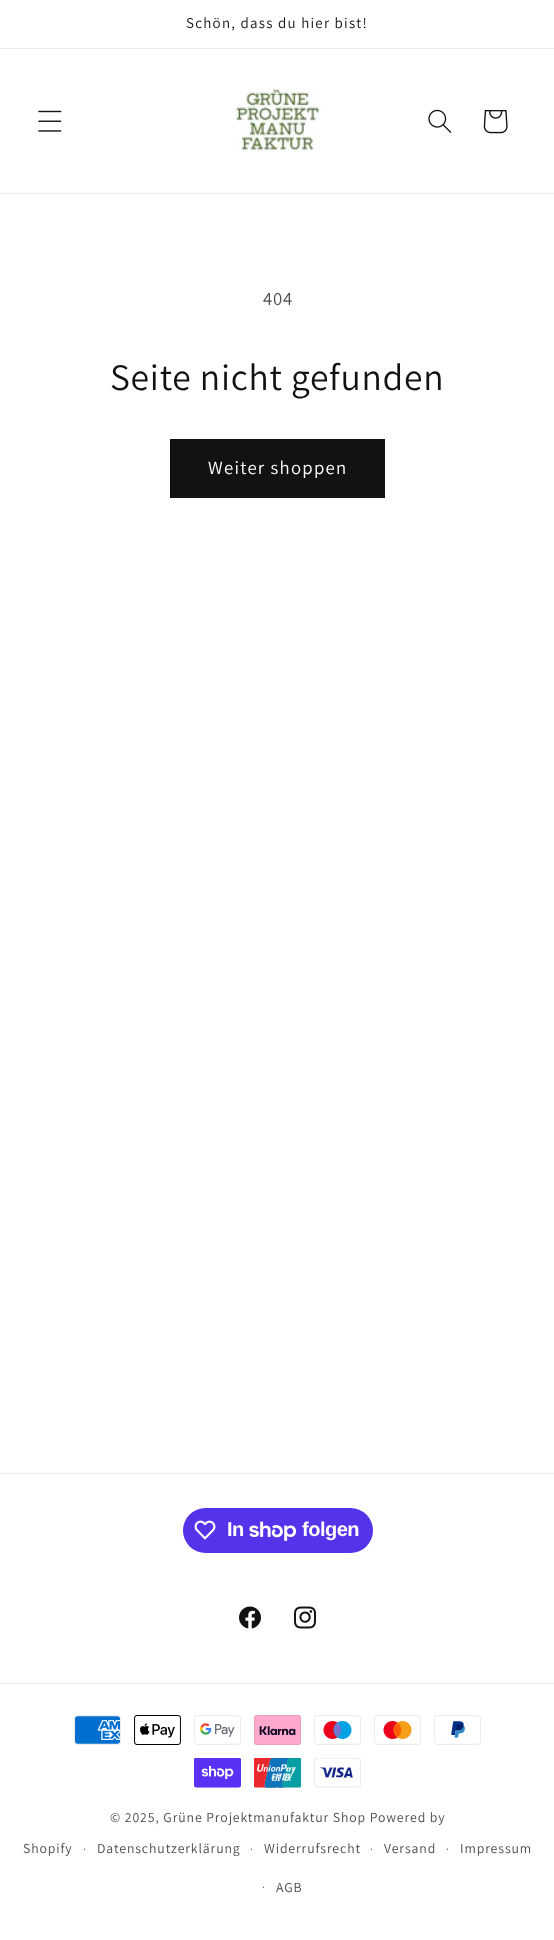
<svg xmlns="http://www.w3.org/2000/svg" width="554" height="1940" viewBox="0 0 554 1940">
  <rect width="100%" height="100%" fill="#ffffff"/>
  <rect x="0" y="48" width="554" height="1" fill="#ececec"/>
  <text x="186" y="28" font-family="Assistant" font-size="15" letter-spacing="1.25" fill="#121212">Schön, dass du hier bist!</text>
  <rect x="0" y="193" width="554" height="1" fill="#ececec"/>
  <image x="38" y="110" width="24" height="22" href="img1.png"/>
  <image x="236" y="88" width="89" height="64" href="img2.png"/>
  <image x="428" y="109" width="24" height="24" href="img3.png"/>
  <image x="483" y="110" width="25" height="24" href="img4.png"/>
  <text x="263" y="305" font-family="Assistant" font-size="18.75" letter-spacing="0.75" fill="#4d4d4d">404</text>
  <text x="110" y="390" font-family="Assistant" font-size="37.5" letter-spacing="0.75" fill="#121212">Seite nicht gefunden</text>
  <rect x="170" y="439" width="215" height="59" fill="#121212"/>
  <text x="208" y="474" font-family="Assistant" font-size="18.75" letter-spacing="1.25" fill="#ffffff">Weiter shoppen</text>
  <rect x="0" y="1473" width="554" height="1" fill="#ececec"/>
  <rect x="183" y="1508" width="190" height="45" rx="22.5" fill="#5433eb"/>
  <image x="194" y="1520" width="22" height="20" href="img5.png"/>
  <text x="227" y="1536" font-family="Liberation Sans" font-size="20" font-weight="bold" letter-spacing="-0.5" fill="#ffffff">In</text>
  <image x="249" y="1521" width="47" height="20" href="img6.png"/>
  <text x="302" y="1536" font-family="Liberation Sans" font-size="20" font-weight="bold" letter-spacing="-0.5" fill="#ffffff">folgen</text>
  <image x="239" y="1606" width="22" height="23" href="img7.png"/>
  <image x="294" y="1606" width="22" height="23" href="img8.png"/>
  <rect x="0" y="1683" width="554" height="1" fill="#ececec"/>
  <image x="74" y="1715" width="47" height="30" href="img9.png"/>
  <image x="134" y="1715" width="47" height="30" href="img10.png"/>
  <image x="194" y="1715" width="47" height="30" href="img11.png"/>
  <image x="254" y="1715" width="47" height="30" href="img12.png"/>
  <image x="314" y="1715" width="47" height="30" href="img13.png"/>
  <image x="374" y="1715" width="47" height="30" href="img14.png"/>
  <image x="434" y="1715" width="47" height="30" href="img15.png"/>
  <image x="194" y="1758" width="47" height="30" href="img16.png"/>
  <image x="254" y="1758" width="47" height="30" href="img17.png"/>
  <image x="314" y="1758" width="47" height="30" href="img18.png"/>
  <text x="110" y="1822" font-family="Assistant" font-size="13.75" letter-spacing="0.9" fill="#4d4d4d">© 2025, Grüne Projektmanufaktur Shop Powered by</text>
  <text x="23" y="1853" font-family="Assistant" font-size="13.75" letter-spacing="0.9" fill="#4d4d4d">Shopify</text>
  <text x="83" y="1853" font-family="Assistant" font-size="12" letter-spacing="0.9" fill="#4d4d4d">·</text>
  <text x="97" y="1853" font-family="Assistant" font-size="13.75" letter-spacing="0.9" fill="#4d4d4d">Datenschutzerklärung</text>
  <text x="250" y="1853" font-family="Assistant" font-size="12" letter-spacing="0.9" fill="#4d4d4d">·</text>
  <text x="264" y="1853" font-family="Assistant" font-size="13.75" letter-spacing="0.9" fill="#4d4d4d">Widerrufsrecht</text>
  <text x="370" y="1853" font-family="Assistant" font-size="12" letter-spacing="0.9" fill="#4d4d4d">·</text>
  <text x="384" y="1853" font-family="Assistant" font-size="13.75" letter-spacing="0.9" fill="#4d4d4d">Versand</text>
  <text x="446" y="1853" font-family="Assistant" font-size="12" letter-spacing="0.9" fill="#4d4d4d">·</text>
  <text x="460" y="1853" font-family="Assistant" font-size="13.75" letter-spacing="0.9" fill="#4d4d4d">Impressum</text>
  <text x="262" y="1891" font-family="Assistant" font-size="12" letter-spacing="0.9" fill="#4d4d4d">·</text>
  <text x="276" y="1892" font-family="Assistant" font-size="13.75" letter-spacing="0.9" fill="#4d4d4d">AGB</text>
</svg>
